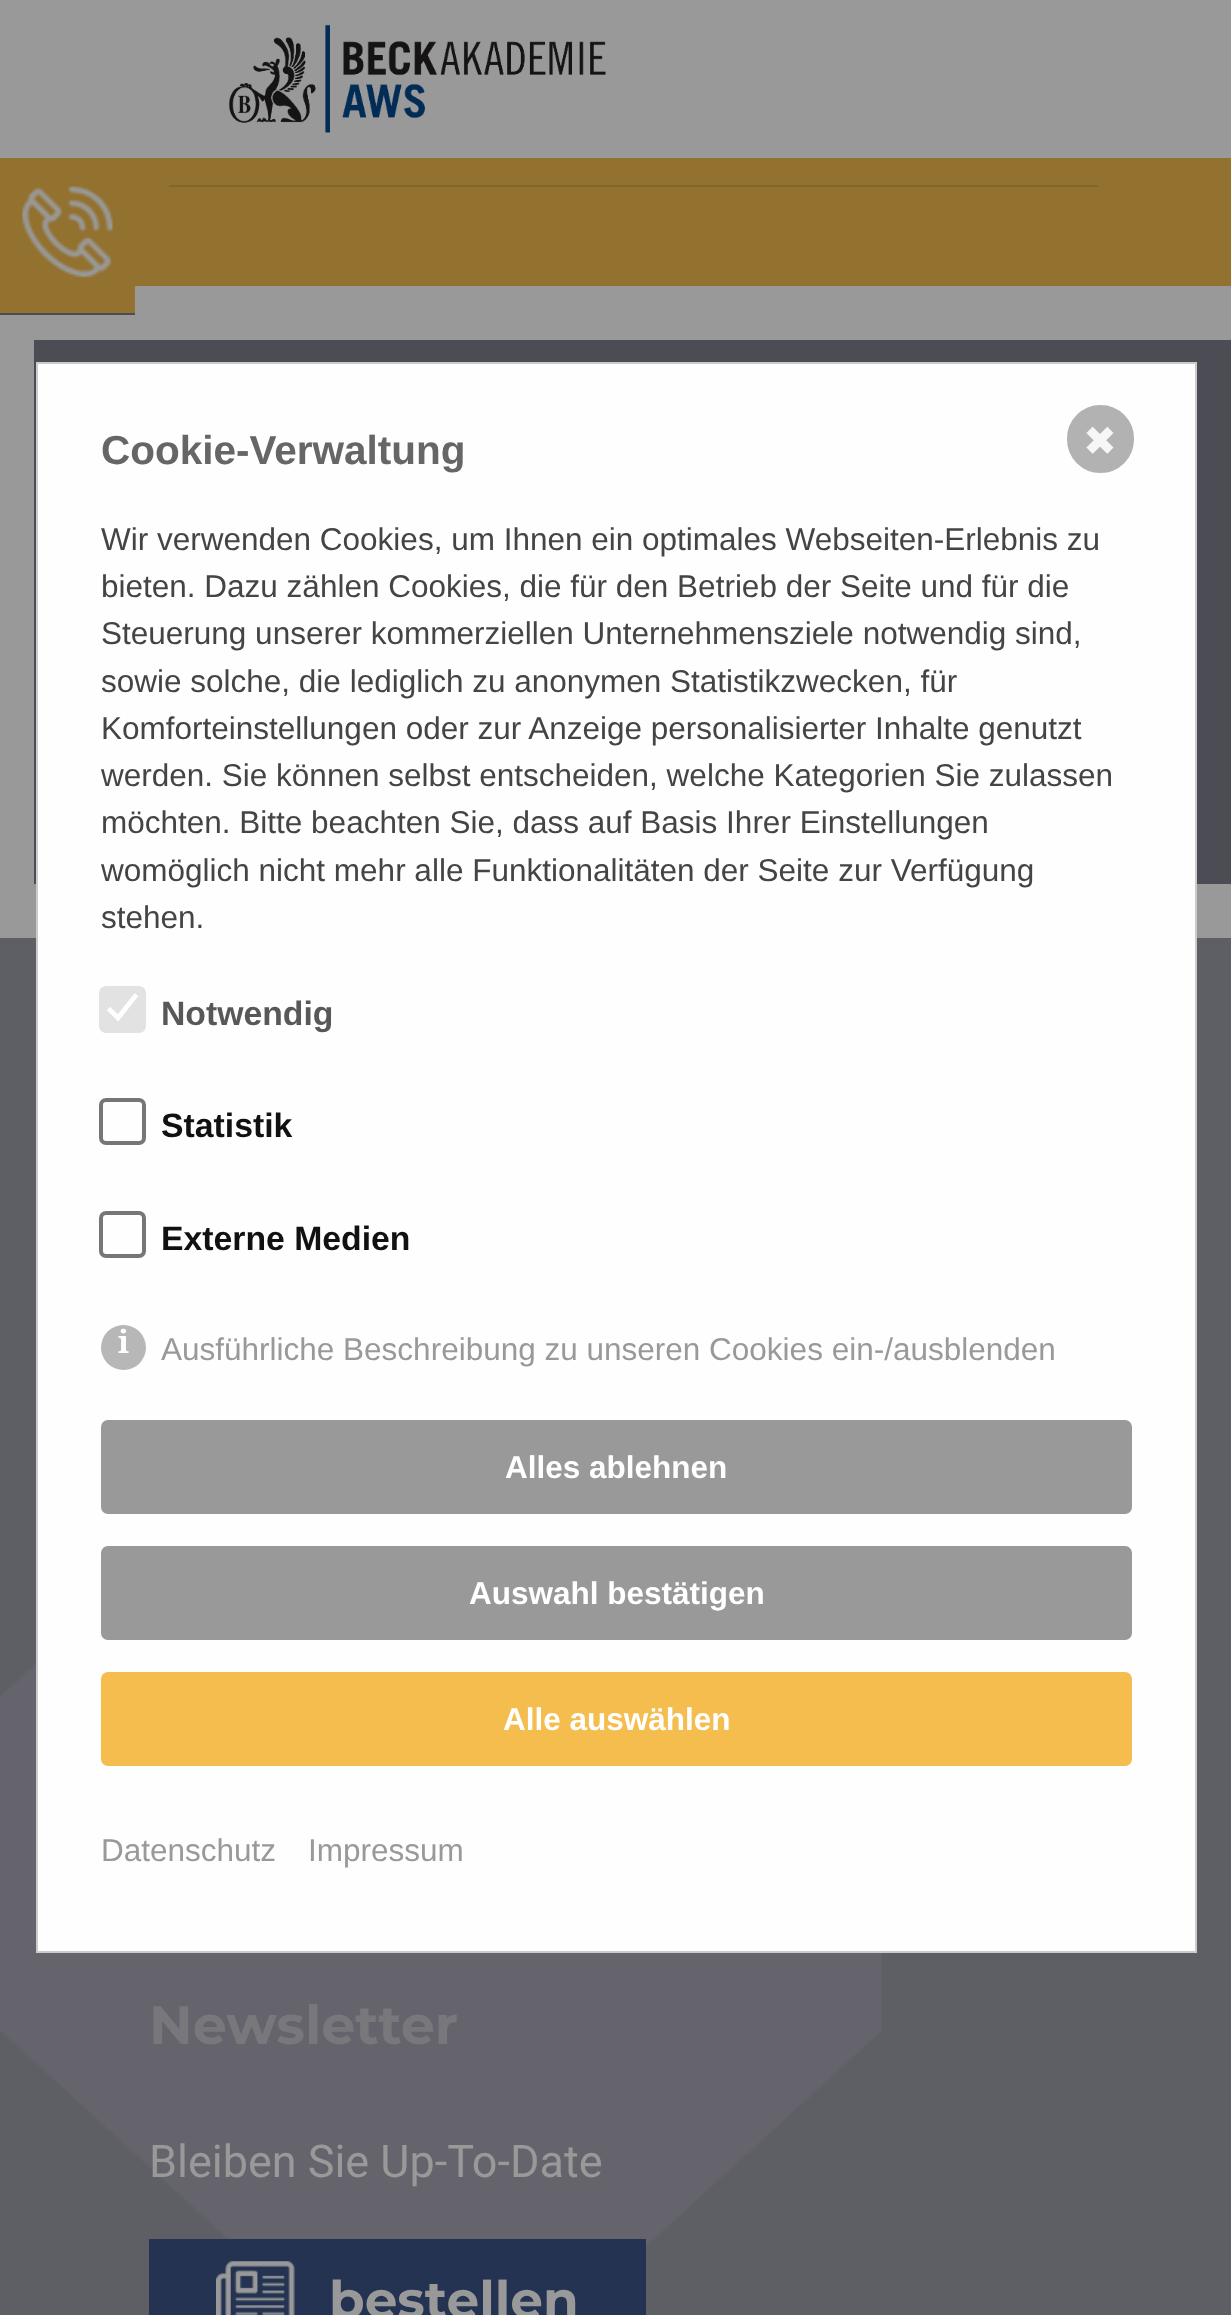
<svg xmlns="http://www.w3.org/2000/svg" width="1231" height="2315" viewBox="0 0 1231 2315">
  <rect width="100%" height="100%" fill="#999999"/>
  <rect x="34" y="340" width="1197" height="544" fill="#4c4c55"/>
  <rect x="0" y="938" width="1231" height="1377" fill="#5e5e65"/>
  <image x="0" y="1460" width="882" height="807" href="img3.png"/>
  <rect x="37" y="363" width="1159" height="1589" fill="#fefefe" stroke="#cbcbcb" stroke-width="2"/>
  <rect x="1069.5" y="407.5" width="62" height="63" rx="31" fill="#b2b2b2" stroke="#b2b2b2" stroke-width="5"/>
  <text x="1083" y="455" font-family="DejaVu Sans" font-size="40.5" fill="#f6f6f6">✖</text>
  <text x="101" y="464" font-family="Liberation Sans" font-size="40.5" font-weight="bold" fill="#666666">Cookie-Verwaltung</text>
  <text x="101" y="550" font-family="Liberation Sans" font-size="31.5" fill="#444444">Wir verwenden Cookies, um Ihnen ein optimales Webseiten-Erlebnis zu</text>
  <text x="101" y="597" font-family="Liberation Sans" font-size="31.5" fill="#444444">bieten. Dazu zählen Cookies, die für den Betrieb der Seite und für die</text>
  <text x="101" y="644" font-family="Liberation Sans" font-size="31.5" fill="#444444">Steuerung unserer kommerziellen Unternehmensziele notwendig sind,</text>
  <text x="101" y="692" font-family="Liberation Sans" font-size="31.5" fill="#444444">sowie solche, die lediglich zu anonymen Statistikzwecken, für</text>
  <text x="101" y="739" font-family="Liberation Sans" font-size="31.5" fill="#444444">Komforteinstellungen oder zur Anzeige personalisierter Inhalte genutzt</text>
  <text x="101" y="786" font-family="Liberation Sans" font-size="31.5" fill="#444444">werden. Sie können selbst entscheiden, welche Kategorien Sie zulassen</text>
  <text x="101" y="833" font-family="Liberation Sans" font-size="31.5" fill="#444444">möchten. Bitte beachten Sie, dass auf Basis Ihrer Einstellungen</text>
  <text x="101" y="881" font-family="Liberation Sans" font-size="31.5" fill="#444444">womöglich nicht mehr alle Funktionalitäten der Seite zur Verfügung</text>
  <text x="101" y="928" font-family="Liberation Sans" font-size="31.5" fill="#444444">stehen.</text>
  <rect x="99" y="986" width="47" height="47" rx="7" fill="#e2e2e2"/>
  <path d="M108.5 1008.5L118 1018L136.5 994.5" fill="none" stroke="#ffffff" stroke-width="4.7"/>
  <text x="161" y="1025" font-family="Liberation Sans" font-size="33.75" font-weight="bold" fill="#585858">Notwendig</text>
  <rect x="101" y="1100" width="43" height="43" rx="5" fill="none" stroke="#767676" stroke-width="4"/>
  <text x="161" y="1137" font-family="Liberation Sans" font-size="33.75" font-weight="bold" fill="#111111">Statistik</text>
  <rect x="101" y="1213" width="43" height="43" rx="5" fill="none" stroke="#767676" stroke-width="4"/>
  <text x="161" y="1250" font-family="Liberation Sans" font-size="33.75" font-weight="bold" fill="#111111">Externe Medien</text>
  <circle cx="123.5" cy="1347.5" r="22.5" fill="#b7b7b7"/>
  <text x="118" y="1353" font-family="Noto Serif" font-size="31.5" font-weight="bold" fill="#ffffff">i</text>
  <text x="161" y="1360" font-family="Liberation Sans" font-size="31.5" fill="#999999">Ausführliche Beschreibung zu unseren Cookies ein-/ausblenden</text>
  <rect x="102" y="1421" width="1029" height="92" rx="6" fill="#999999" stroke="#999999" stroke-width="2"/>
  <text x="505" y="1478" font-family="Liberation Sans" font-size="31.5" font-weight="bold" fill="#ffffff">Alles ablehnen</text>
  <rect x="102" y="1547" width="1029" height="92" rx="6" fill="#999999" stroke="#999999" stroke-width="2"/>
  <text x="469" y="1604" font-family="Liberation Sans" font-size="31.5" font-weight="bold" fill="#ffffff">Auswahl bestätigen</text>
  <rect x="102" y="1673" width="1029" height="92" rx="6" fill="#f5bd4e" stroke="#f5bd4e" stroke-width="2"/>
  <text x="503" y="1730" font-family="Liberation Sans" font-size="31.5" font-weight="bold" fill="#ffffff">Alle auswählen</text>
  <text x="101" y="1861" font-family="Liberation Sans" font-size="31.5" fill="#999999">Datenschutz</text>
  <text x="308" y="1861" font-family="Liberation Sans" font-size="31.5" fill="#999999">Impressum</text>
  <image x="228" y="24" width="378" height="109" href="img1.png"/>
  <rect x="0" y="158" width="135" height="155" fill="#93712f"/>
  <rect x="0" y="313" width="135" height="2" fill="#4c4c55"/>
  <image x="22" y="186" width="91" height="92" href="img2.png"/>
  <rect x="135" y="158" width="1096" height="128" fill="#93712f"/>
  <rect x="169" y="185" width="929" height="2" fill="#85662a"/>
  <text x="149" y="2044" font-family="Montserrat" font-size="54" font-weight="bold" fill="#77777c">Newsletter</text>
  <text x="149" y="2177" font-family="Roboto" font-size="45" fill="#999999">Bleiben Sie Up-To-Date</text>
  <rect x="149" y="2239" width="497" height="76" fill="#253352"/>
  <image x="216" y="2261" width="79" height="54" href="img4.png"/>
  <text x="329" y="2318" font-family="Montserrat" font-size="51.75" font-weight="bold" fill="#999999">bestellen</text>
</svg>
